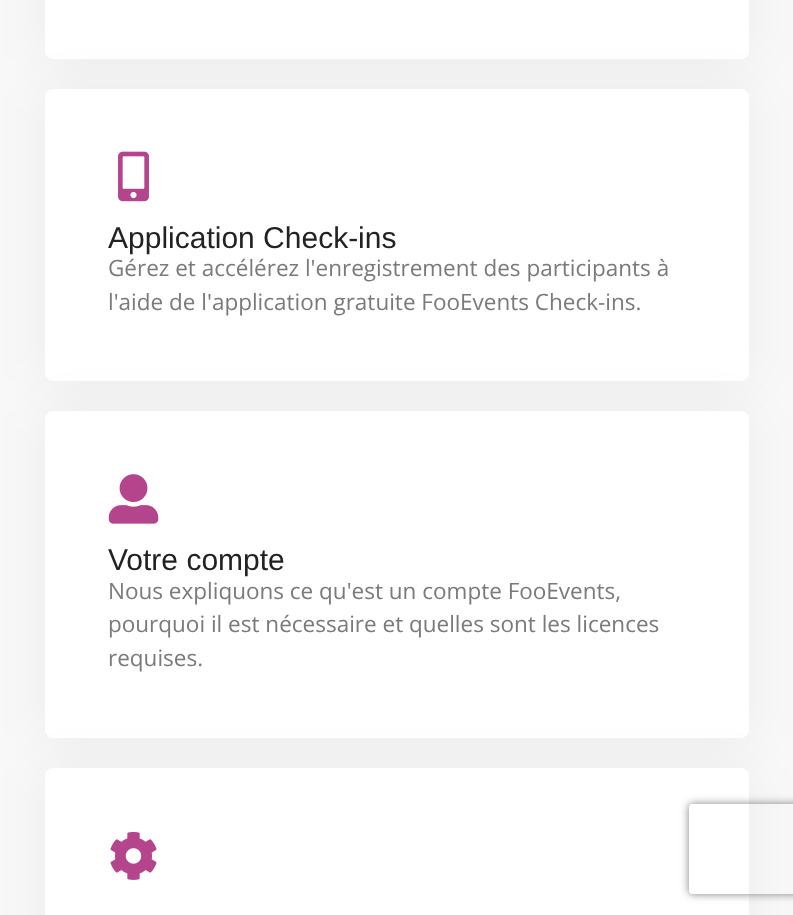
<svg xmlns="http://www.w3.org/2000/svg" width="793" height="915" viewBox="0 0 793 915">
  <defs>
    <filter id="blur1" x="-50%" y="-200%" width="200%" height="500%"><feGaussianBlur stdDeviation="25"/></filter>
    <clipPath id="clip1"><path d="M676 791H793V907H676ZM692 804H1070C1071.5 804 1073 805.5 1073 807V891C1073 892.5 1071.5 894 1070 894H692C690.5 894 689 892.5 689 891V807C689 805.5 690.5 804 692 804Z" clip-rule="evenodd"/></clipPath>
    <filter id="blur2" x="-50%" y="-200%" width="200%" height="500%"><feGaussianBlur stdDeviation="4"/></filter>
  </defs>
  <rect width="100%" height="100%" fill="#f8f8f8"/>
  <rect x="45" y="-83" width="704" height="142" rx="8" fill="#000000" fill-opacity="0.05" filter="url(#blur1)"/>
  <rect x="46.5" y="-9.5" width="701" height="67" rx="6.5" fill="#ffffff" stroke="#ffffff" stroke-width="3"/>
  <rect x="45" y="89" width="704" height="292" rx="8" fill="#000000" fill-opacity="0.05" filter="url(#blur1)"/>
  <rect x="46.5" y="90.5" width="701" height="289" rx="6.5" fill="#ffffff" stroke="#ffffff" stroke-width="3"/>
  <image x="118" y="151" width="31" height="51" href="img1.png"/>
  <text x="108" y="248" font-family="Liberation Sans" font-size="30" fill="#222222">Application Check-ins</text>
  <text x="108" y="276" font-family="Open Sans" font-size="22.5" fill="#7a7a7a">Gérez et accélérez l'enregistrement des participants à</text>
  <text x="108" y="310" font-family="Open Sans" font-size="22.5" fill="#7a7a7a">l'aide de l'application gratuite FooEvents Check-ins.</text>
  <rect x="45" y="411" width="704" height="327" rx="8" fill="#000000" fill-opacity="0.05" filter="url(#blur1)"/>
  <rect x="46.5" y="412.5" width="701" height="324" rx="6.5" fill="#ffffff" stroke="#ffffff" stroke-width="3"/>
  <image x="108" y="474" width="51" height="50" href="img2.png"/>
  <text x="108" y="570" font-family="Liberation Sans" font-size="30" fill="#222222">Votre compte</text>
  <text x="108" y="599" font-family="Open Sans" font-size="22.5" fill="#7a7a7a">Nous expliquons ce qu'est un compte FooEvents,</text>
  <text x="108" y="632" font-family="Open Sans" font-size="22.5" fill="#7a7a7a">pourquoi il est nécessaire et quelles sont les licences</text>
  <text x="108" y="666" font-family="Open Sans" font-size="22.5" fill="#7a7a7a">requises.</text>
  <rect x="45" y="768" width="704" height="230" rx="8" fill="#000000" fill-opacity="0.05" filter="url(#blur1)"/>
  <rect x="46.5" y="769.5" width="701" height="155" rx="6.5" fill="#ffffff" stroke="#ffffff" stroke-width="3"/>
  <image x="110" y="831" width="47" height="49" href="img3.png"/>
  <g clip-path="url(#clip1)">
    <rect x="689" y="804" width="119" height="90" rx="3" fill="#808080" filter="url(#blur2)"/>
  </g>
</svg>
